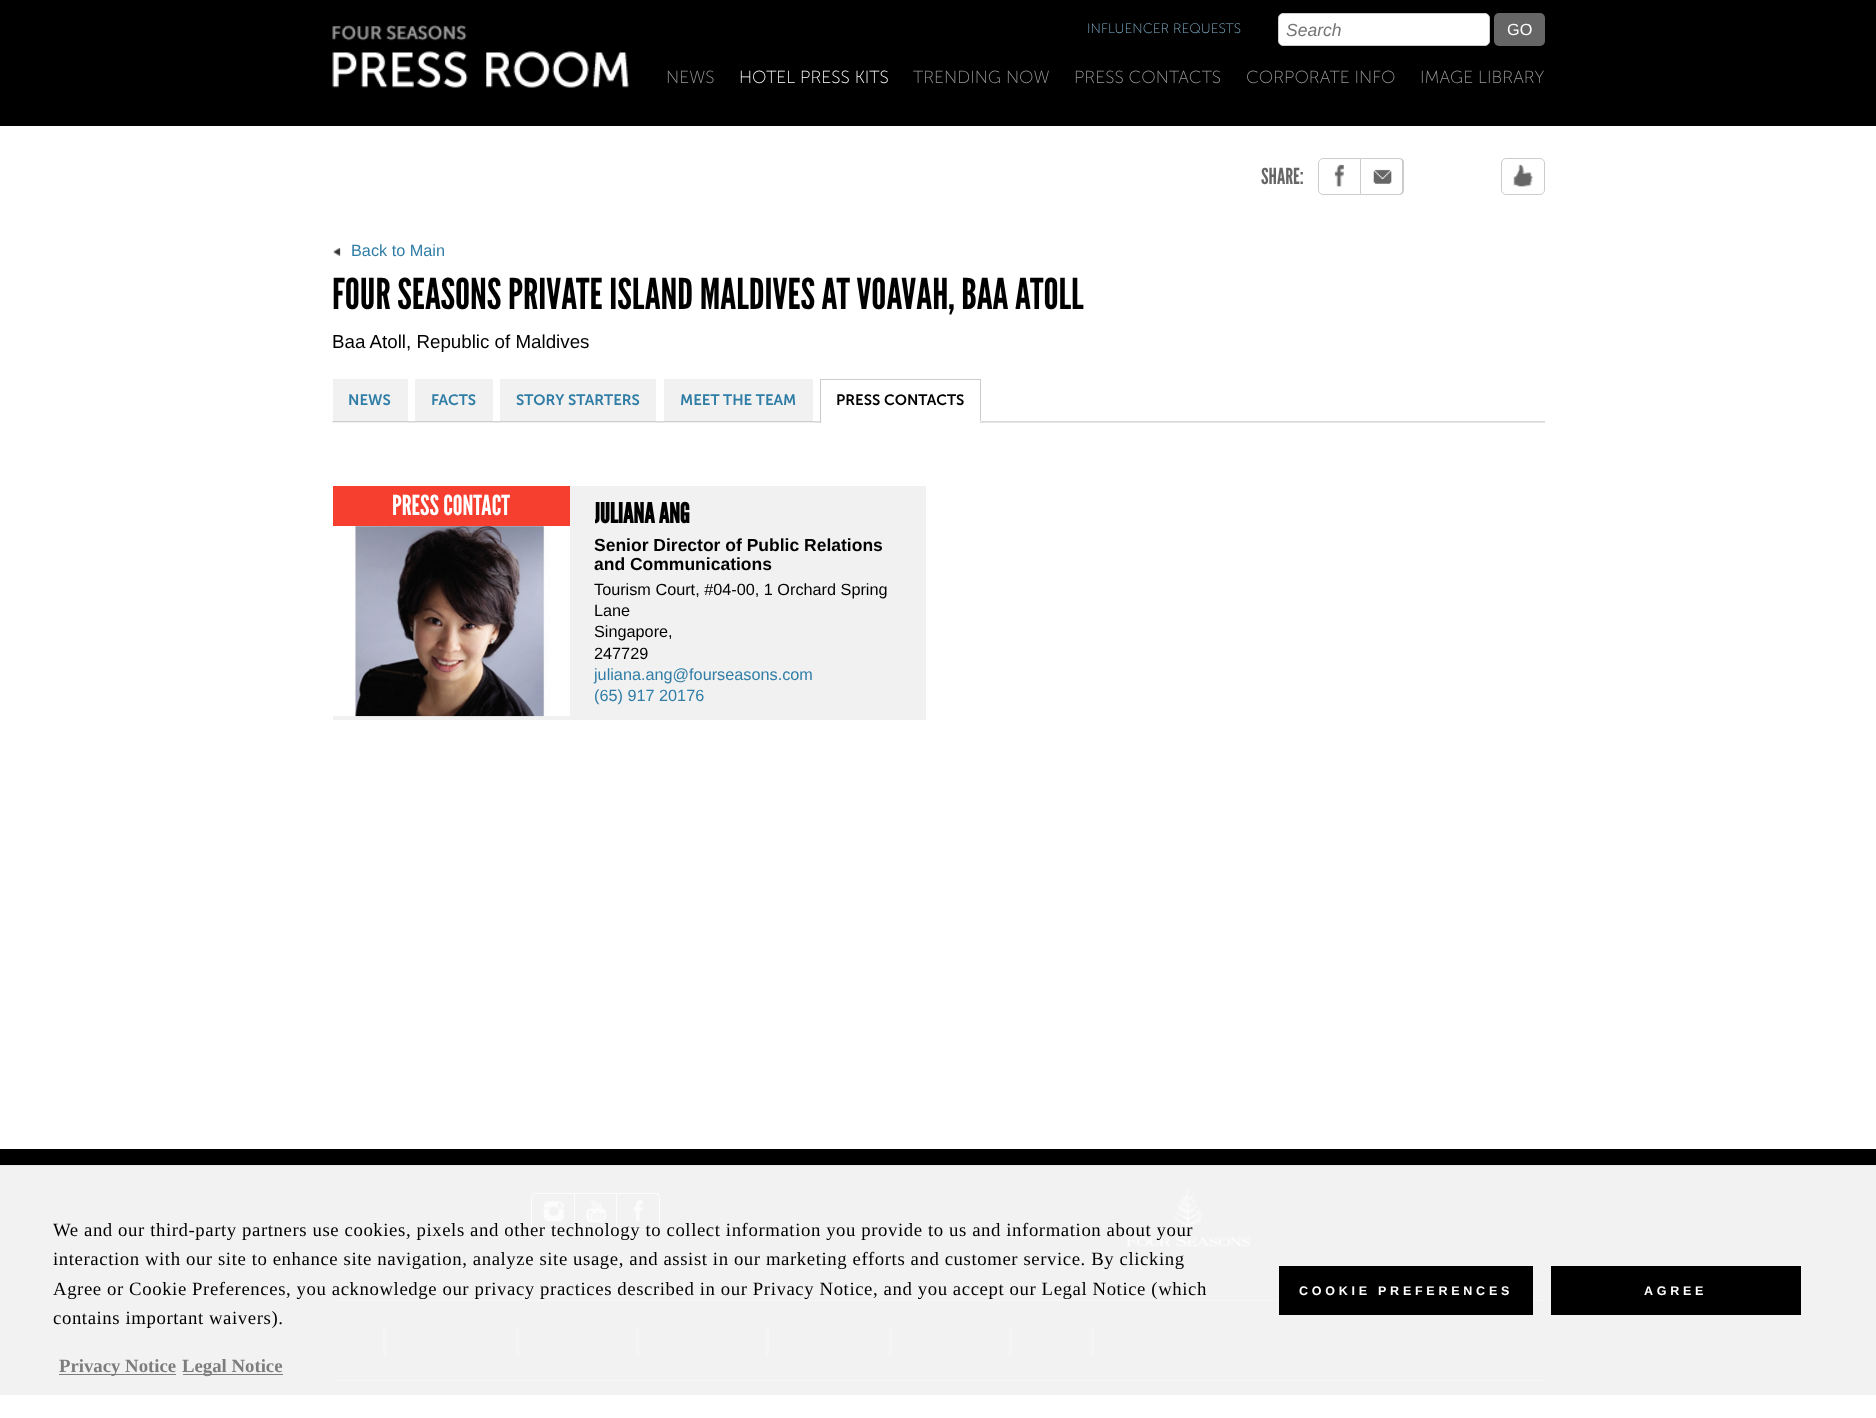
<svg xmlns="http://www.w3.org/2000/svg" width="1876" height="1418" viewBox="0 0 1876 1418">
  <defs>
    <clipPath id="clip1"><rect x="595" y="499" width="319" height="30"/></clipPath>
    <clipPath id="clip2"><rect x="531" y="1193" width="408" height="37"/></clipPath>
  </defs>
  <rect width="100%" height="100%" fill="#ffffff"/>
  <rect x="0" y="0" width="1876" height="126" fill="#000000"/>
  <image x="332" y="25" width="297" height="63" href="img1.png"/>
  <text x="1087" y="33" font-family="'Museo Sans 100'" font-size="13.75" font-weight="300" fill="#83b1cb">INFLUENCER REQUESTS</text>
  <rect x="1278.5" y="13.5" width="211" height="32" rx="4.5" fill="#ffffff" stroke="#cccccc"/>
  <text x="1286" y="36" font-family="Liberation Sans" font-size="17.5" font-style="italic" fill="#757575">Search</text>
  <rect x="1494" y="13" width="51" height="33" rx="5" fill="#666666"/>
  <text x="1507" y="35" font-family="Liberation Sans" font-size="16.25" fill="#ffffff">GO</text>
  <text x="666" y="83" font-family="'Museo Sans 100'" font-size="17.5" font-weight="300" fill="#999999">NEWS</text>
  <text x="739" y="83" font-family="'Museo Sans 100'" font-size="17.5" font-weight="300" fill="#ffffff">HOTEL PRESS KITS</text>
  <text x="913" y="83" font-family="'Museo Sans 100'" font-size="17.5" font-weight="300" fill="#999999">TRENDING NOW</text>
  <text x="1074" y="83" font-family="'Museo Sans 100'" font-size="17.5" font-weight="300" fill="#999999">PRESS CONTACTS</text>
  <text x="1246" y="83" font-family="'Museo Sans 100'" font-size="17.5" font-weight="300" fill="#999999">CORPORATE INFO</text>
  <text x="1420" y="83" font-family="'Museo Sans 100'" font-size="17.5" font-weight="300" fill="#999999">IMAGE LIBRARY</text>
  <text x="1261" y="184" font-family="League Gothic" font-size="22" fill="#666666">SHARE:</text>
  <image x="1334" y="164" width="10" height="23" href="img2.png"/>
  <path d="M1323 158.5H1360.5V194.5H1323C1320.5 194.5 1318.5 192.5 1318.5 190V163C1318.5 160.5 1320.5 158.5 1323 158.5Z" fill="none" stroke="#cccccc"/>
  <image x="1373" y="169" width="19" height="15" href="img3.png"/>
  <path d="M1361 158H1399C1402 158 1404 160 1404 162V190C1404 193 1402 195 1399 195H1361ZM1361 159H1399C1401 159 1402 160 1402 162V190C1402 192 1401 194 1399 194H1361Z" fill="#cccccc" fill-rule="evenodd"/>
  <rect x="1501.5" y="158.5" width="43" height="36" rx="4.5" fill="none" stroke="#cccccc"/>
  <image x="1513" y="164" width="20" height="23" href="img4.png"/>
  <image x="333" y="248" width="8" height="8" href="img5.png"/>
  <text x="351" y="256" font-family="Liberation Sans" font-size="16.25" fill="#307da6">Back to Main</text>
  <text x="332" y="309" font-family="League Gothic" font-size="42.5" fill="#000000">FOUR SEASONS PRIVATE ISLAND MALDIVES AT VOAVAH, BAA ATOLL</text>
  <text x="332" y="348" font-family="Liberation Sans" font-size="18.75" fill="#000000">Baa Atoll, Republic of Maldives</text>
  <image x="332" y="421" width="1213" height="2" href="img6.png"/>
  <rect x="333" y="379" width="75" height="44" fill="#f1f1f1"/>
  <rect x="333" y="421" width="75" height="1" fill="#cccccc"/>
  <text x="348" y="405" font-family="'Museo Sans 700'" font-size="15" font-weight="600" fill="#307da6">NEWS</text>
  <rect x="415" y="379" width="78" height="44" fill="#f1f1f1"/>
  <rect x="415" y="421" width="78" height="1" fill="#cccccc"/>
  <text x="431" y="405" font-family="'Museo Sans 700'" font-size="15" font-weight="600" fill="#307da6">FACTS</text>
  <rect x="500" y="379" width="156" height="44" fill="#f1f1f1"/>
  <rect x="500" y="421" width="156" height="1" fill="#cccccc"/>
  <text x="516" y="405" font-family="'Museo Sans 700'" font-size="15" font-weight="600" fill="#307da6">STORY STARTERS</text>
  <rect x="664" y="379" width="149" height="44" fill="#f1f1f1"/>
  <rect x="664" y="421" width="149" height="1" fill="#cccccc"/>
  <text x="680" y="405" font-family="'Museo Sans 700'" font-size="15" font-weight="600" fill="#307da6">MEET THE TEAM</text>
  <rect x="821" y="421" width="159" height="2" fill="#ffffff"/>
  <rect x="820" y="379" width="161" height="1" fill="#cccccc"/>
  <rect x="980" y="379" width="1" height="44" fill="#cccccc"/>
  <rect x="820" y="421" width="161" height="1" fill="#ffffff"/>
  <rect x="820" y="379" width="1" height="44" fill="#cccccc"/>
  <text x="836" y="405" font-family="'Museo Sans 700'" font-size="15" font-weight="600" fill="#000000">PRESS CONTACTS</text>
  <rect x="333" y="486" width="593" height="234" fill="#f1f1f1"/>
  <rect x="333" y="486" width="237" height="40" fill="#f73f30"/>
  <text x="392" y="515" font-family="League Gothic" font-size="27.5" fill="#ffffff">PRESS CONTACT</text>
  <image x="333" y="526" width="237" height="191" href="img7.png"/>
  <g clip-path="url(#clip1)">
    <text x="594" y="523" font-family="League Gothic" font-size="27.5" font-weight="bold" fill="#000000">JULIANA ANG</text>
  </g>
  <text x="594" y="551" font-family="Liberation Sans" font-size="17.5" font-weight="bold" fill="#000000">Senior Director of Public Relations</text>
  <text x="594" y="570" font-family="Liberation Sans" font-size="17.5" font-weight="bold" fill="#000000">and Communications</text>
  <text x="594" y="595" font-family="Liberation Sans" font-size="16.25" fill="#000000">Tourism Court, #04-00, 1 Orchard Spring</text>
  <text x="594" y="616" font-family="Liberation Sans" font-size="16.25" fill="#000000">Lane</text>
  <text x="594" y="637" font-family="Liberation Sans" font-size="16.25" fill="#000000">Singapore,</text>
  <text x="594" y="659" font-family="Liberation Sans" font-size="16.25" fill="#000000">247729</text>
  <text x="594" y="680" font-family="Liberation Sans" font-size="16.25" fill="#307da6">juliana.ang@fourseasons.com</text>
  <text x="594" y="701" font-family="Liberation Sans" font-size="16.25" fill="#307da6">(65) 917 20176</text>
  <rect x="0" y="1149" width="1876" height="16" fill="#000000"/>
  <rect x="0" y="1166" width="1876" height="229" fill="#f2f2f2"/>
  <image x="543" y="1201" width="21" height="21" href="img8.png"/>
  <path d="M536 1193.5H574.5V1229.5H536C533.5 1229.5 531.5 1227.5 531.5 1225V1198C531.5 1195.5 533.5 1193.5 536 1193.5Z" fill="none" stroke="#fcfcfc"/>
  <image x="586" y="1199" width="21" height="24" href="img9.png"/>
  <rect x="575" y="1193" width="43" height="1" fill="#fcfcfc"/>
  <rect x="616" y="1193" width="1" height="37" fill="#fcfcfc"/>
  <rect x="575" y="1229" width="43" height="1" fill="#fcfcfc"/>
  <image x="633" y="1199" width="10" height="23" href="img10.png"/>
  <g clip-path="url(#clip2)">
    <path d="M618 1192H655C658 1192 660 1195 660 1198V1225C660 1228 658 1230 655 1230H618ZM618 1194H655C657 1194 659 1195 659 1198V1225C659 1227 657 1229 655 1229H618Z" fill="#fcfcfc" fill-rule="evenodd"/>
  </g>
  <image x="1126" y="1189" width="125" height="58" href="img11.png"/>
  <rect x="333" y="1300" width="1212" height="1" fill="#f6f6f6"/>
  <rect x="383" y="1328" width="3" height="27" fill="#f5f5f5"/>
  <rect x="516" y="1328" width="3" height="27" fill="#f5f5f5"/>
  <rect x="636" y="1328" width="3" height="27" fill="#f5f5f5"/>
  <rect x="766" y="1328" width="3" height="27" fill="#f5f5f5"/>
  <rect x="889" y="1328" width="3" height="27" fill="#f5f5f5"/>
  <rect x="1009" y="1328" width="3" height="27" fill="#f5f5f5"/>
  <rect x="1091" y="1328" width="3" height="27" fill="#f5f5f5"/>
  <rect x="333" y="1380" width="1212" height="1" fill="#f6f6f6"/>
  <rect x="0" y="1165" width="1876" height="1" fill="#e8e8e8"/>
  <text x="53" y="1236" font-family="Liberation Serif" font-size="18.75" letter-spacing="0.59" fill="#000000">We and our third-party partners use cookies, pixels and other technology to collect information you provide to us and information about your</text>
  <text x="53" y="1265" font-family="Liberation Serif" font-size="18.75" letter-spacing="0.59" fill="#000000">interaction with our site to enhance site navigation, analyze site usage, and assist in our marketing efforts and customer service. By clicking</text>
  <text x="53" y="1295" font-family="Liberation Serif" font-size="18.75" letter-spacing="0.59" fill="#000000">Agree or Cookie Preferences, you acknowledge our privacy practices described in our Privacy Notice, and you accept our Legal Notice (which</text>
  <text x="53" y="1324" font-family="Liberation Serif" font-size="18.75" letter-spacing="0.59" fill="#000000">contains important waivers).</text>
  <rect x="59" y="1374" width="117" height="1" fill="#7d7d7d"/>
  <text x="59" y="1372" font-family="Liberation Serif" font-size="18.75" font-weight="bold" fill="#7d7d7d">Privacy Notice</text>
  <rect x="183" y="1374" width="100" height="1" fill="#7d7d7d"/>
  <text x="182" y="1372" font-family="Liberation Serif" font-size="18.75" font-weight="bold" fill="#7d7d7d">Legal Notice</text>
  <rect x="1279" y="1266" width="254" height="49" fill="#000000"/>
  <text x="1299" y="1295" font-family="Liberation Sans" font-size="12.5" font-weight="bold" letter-spacing="3.75" fill="#ffffff">COOKIE PREFERENCES</text>
  <rect x="1551" y="1266" width="250" height="49" fill="#000000"/>
  <text x="1644" y="1295" font-family="Liberation Sans" font-size="12.5" font-weight="bold" letter-spacing="3.75" fill="#ffffff">AGREE</text>
</svg>
